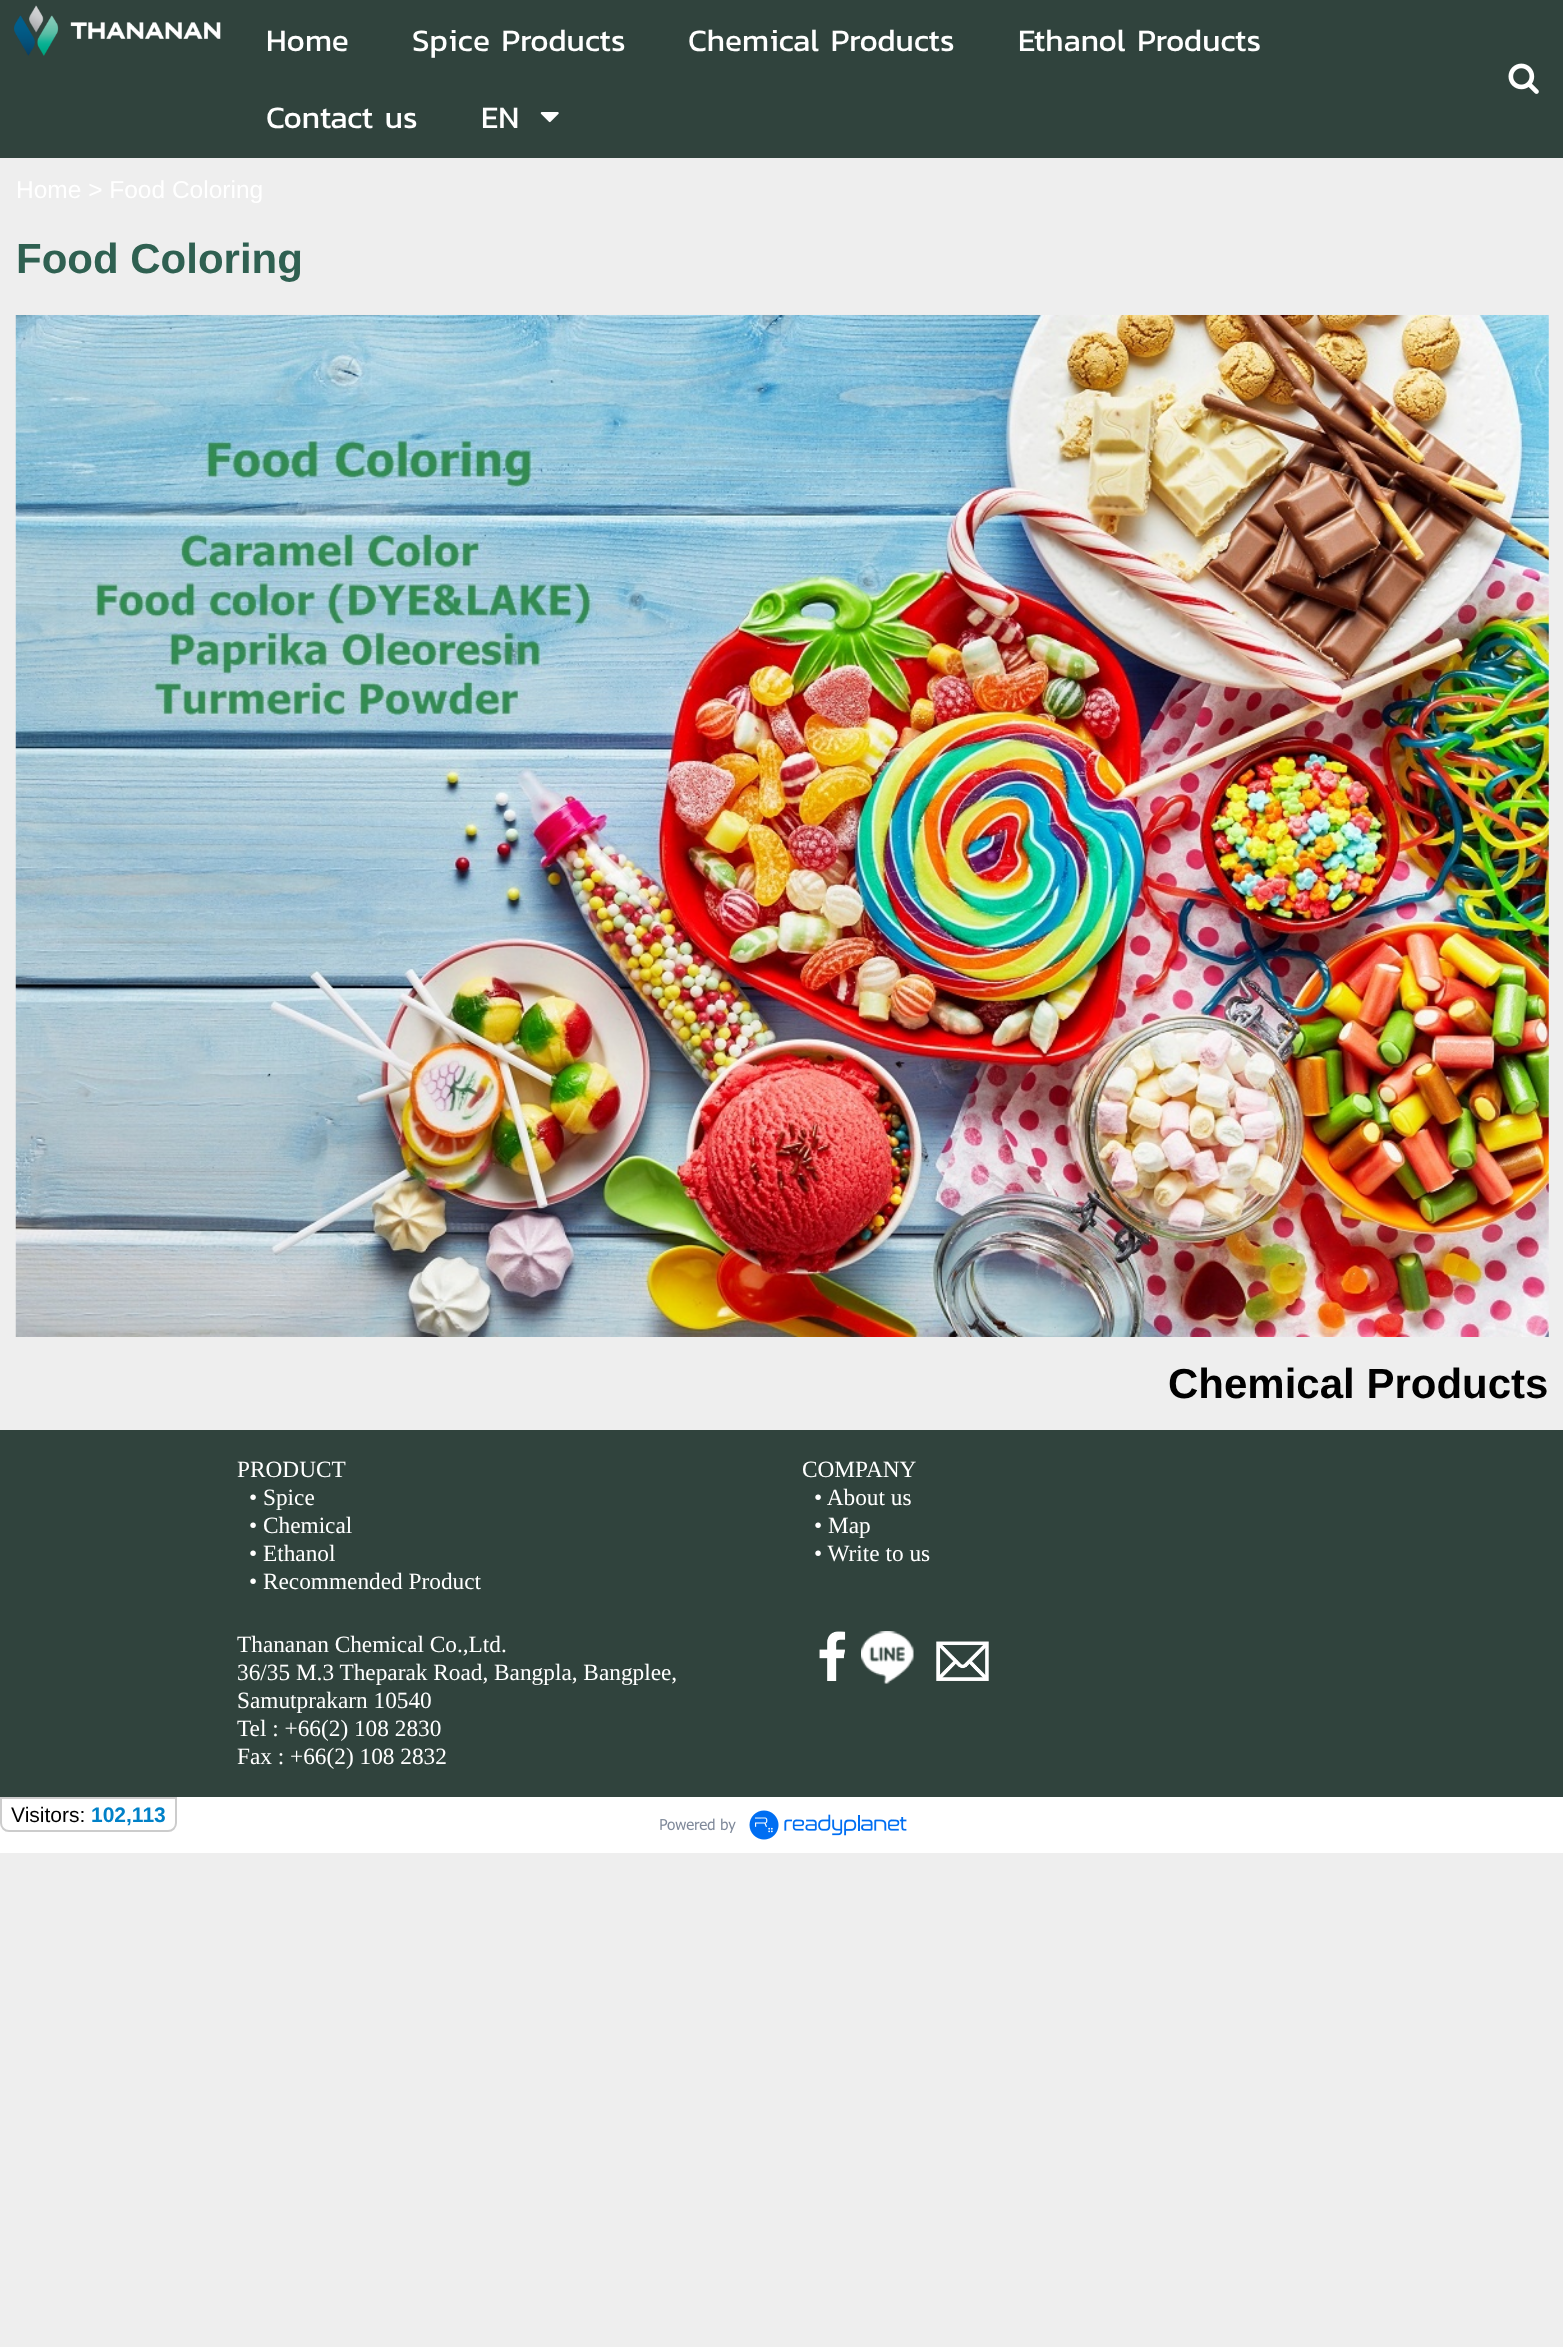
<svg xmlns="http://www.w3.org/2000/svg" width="1563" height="2347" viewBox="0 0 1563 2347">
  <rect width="100%" height="100%" fill="#eeeeee"/>
  <rect x="0" y="0" width="1563" height="158" fill="#30433d"/>
  <image x="14" y="5" width="207" height="51" href="img1.png"/>
  <text x="266" y="51" font-family="Kanit" font-size="31.5" fill="#ffffff">Home</text>
  <text x="412" y="51" font-family="Kanit" font-size="31.5" fill="#ffffff">Spice Products</text>
  <text x="688" y="51" font-family="Kanit" font-size="31.5" fill="#ffffff">Chemical Products</text>
  <text x="1018" y="51" font-family="Kanit" font-size="31.5" fill="#ffffff">Ethanol Products</text>
  <text x="266" y="128" font-family="Kanit" font-size="31.5" fill="#ffffff">Contact us</text>
  <text x="481" y="128" font-family="Kanit" font-size="31.5" fill="#ffffff">EN</text>
  <image x="540" y="112" width="19" height="11" href="img2.png"/>
  <image x="1508" y="63" width="31" height="31" href="img3.png"/>
  <text x="16" y="198" font-family="Liberation Sans" font-size="24.5" fill="#ffffff">Home &gt; Food Coloring</text>
  <text x="16" y="273" font-family="Liberation Sans" font-size="42" font-weight="bold" fill="#2f6051">Food Coloring</text>
  <image x="15" y="315" width="1534" height="1022" href="img4.png"/>
  <text x="1168" y="1398" font-family="Liberation Sans" font-size="42" font-weight="bold" fill="#000000">Chemical Products</text>
  <rect x="0" y="1430" width="1563" height="367" fill="#30433d"/>
  <text x="237" y="1477" font-family="Liberation Serif" font-size="23.3" fill="#ffffff">PRODUCT</text>
  <text x="249" y="1505" font-family="Liberation Serif" font-size="23.3" fill="#ffffff">• Spice</text>
  <text x="249" y="1533" font-family="Liberation Serif" font-size="23.3" fill="#ffffff">• Chemical</text>
  <text x="249" y="1561" font-family="Liberation Serif" font-size="23.3" fill="#ffffff">• Ethanol</text>
  <text x="249" y="1589" font-family="Liberation Serif" font-size="23.3" fill="#ffffff">• Recommended Product</text>
  <text x="802" y="1477" font-family="Liberation Serif" font-size="23.3" fill="#ffffff">COMPANY</text>
  <text x="814" y="1505" font-family="Liberation Serif" font-size="23.3" fill="#ffffff">• About us</text>
  <text x="814" y="1533" font-family="Liberation Serif" font-size="23.3" fill="#ffffff">• Map</text>
  <text x="814" y="1561" font-family="Liberation Serif" font-size="23.3" fill="#ffffff">• Write to us</text>
  <text x="237" y="1652" font-family="Liberation Serif" font-size="23.3" fill="#ffffff">Thananan Chemical Co.,Ltd.</text>
  <text x="237" y="1680" font-family="Liberation Serif" font-size="23.3" fill="#ffffff">36/35 M.3 Theparak Road, Bangpla, Bangplee,</text>
  <text x="237" y="1708" font-family="Liberation Serif" font-size="23.3" fill="#ffffff">Samutprakarn 10540</text>
  <text x="237" y="1736" font-family="Liberation Serif" font-size="23.3" fill="#ffffff">Tel : +66(2) 108 2830</text>
  <text x="237" y="1764" font-family="Liberation Serif" font-size="23.3" fill="#ffffff">Fax : +66(2) 108 2832</text>
  <image x="819" y="1631" width="27" height="50" href="img5.png"/>
  <image x="861" y="1631" width="53" height="53" href="img6.png"/>
  <image x="936" y="1641" width="53" height="40" href="img7.png"/>
  <rect x="0" y="1797" width="1563" height="56" fill="#ffffff"/>
  <image x="660" y="1810" width="247" height="30" href="img8.png"/>
  <path d="M1 1798H176V1823C176 1827.5 172.5 1831 168 1831H9C4.5 1831 1 1827.5 1 1823Z" fill="none" stroke="#cccccc" stroke-width="2"/>
  <text x="11" y="1822" font-family="Liberation Sans" font-size="21" fill="#000000">Visitors:</text>
  <text x="91" y="1822" font-family="Liberation Sans" font-size="21" font-weight="bold" fill="#0081c8">102,113</text>
</svg>
